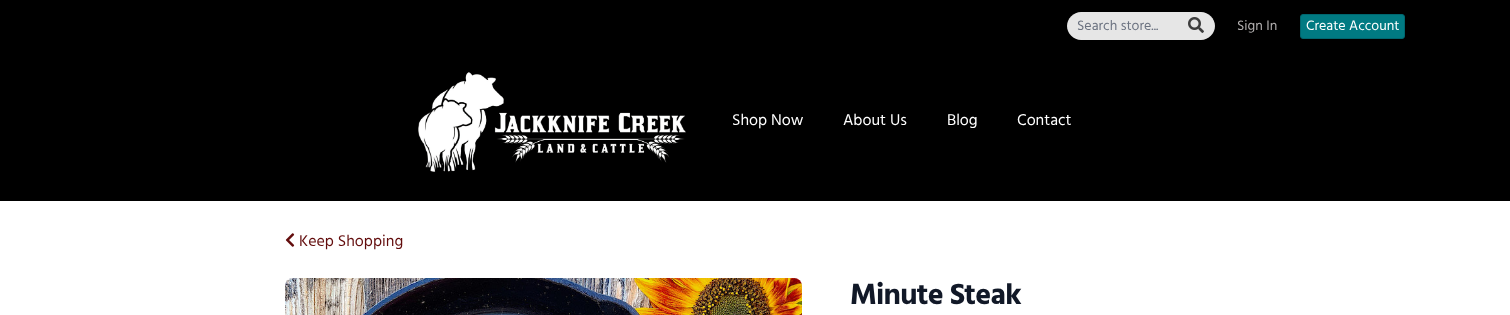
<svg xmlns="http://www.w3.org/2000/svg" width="1510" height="315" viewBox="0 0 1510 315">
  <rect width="100%" height="100%" fill="#ffffff"/>
  <rect x="0" y="0" width="1510" height="201" fill="#000000"/>
  <path d="M1081 12H1187V40H1081C1073.5 40 1067 33.5 1067 26C1067 18.5 1073.5 12 1081 12Z" fill="#e6e6e6"/>
  <text x="1077" y="30" font-family="Hind" font-size="14" fill="#6b7280">Search store...</text>
  <path d="M1187 12H1201C1208.5 12 1215 18.5 1215 26C1215 33.5 1208.5 40 1201 40H1187Z" fill="#e6e6e6"/>
  <image x="1188" y="17" width="16" height="16" href="img1.png"/>
  <text x="1237" y="30" font-family="Hind" font-size="14" fill="#b2afaf">Sign In</text>
  <rect x="1300.5" y="14.5" width="104" height="24" rx="2.5" fill="#007a82" stroke="#00666e"/>
  <text x="1306" y="30" font-family="Hind" font-size="14" fill="#ffffff">Create Account</text>
  <image x="418" y="72" width="268" height="100" href="img2.png"/>
  <text x="732" y="125" font-family="Hind" font-size="16" fill="#ffffff">Shop Now</text>
  <text x="843" y="125" font-family="Hind" font-size="16" fill="#ffffff">About Us</text>
  <text x="947" y="125" font-family="Hind" font-size="16" fill="#ffffff">Blog</text>
  <text x="1017" y="125" font-family="Hind" font-size="16" fill="#ffffff">Contact</text>
  <image x="285" y="233" width="10" height="14" href="img3.png"/>
  <text x="299" y="246" font-family="Hind" font-size="16" fill="#630d0d">Keep Shopping</text>
  <image x="285" y="278" width="517" height="37" href="img4.png"/>
  <text x="850" y="304" font-family="Hind" font-size="30" font-weight="bold" letter-spacing="-0.75" fill="#111827">Minute Steak</text>
</svg>
